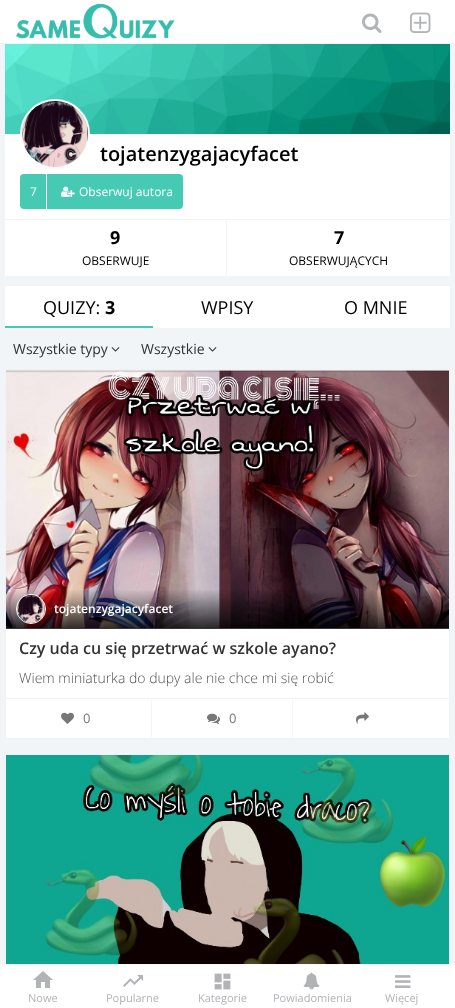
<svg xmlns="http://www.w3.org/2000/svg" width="455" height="1008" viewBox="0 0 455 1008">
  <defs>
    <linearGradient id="g1" gradientUnits="userSpaceOnUse" x1="228" y1="589" x2="228" y2="629"><stop offset="0" stop-color="#000000" stop-opacity="0"/><stop offset="1" stop-color="#000000" stop-opacity="0.8"/></linearGradient>
  </defs>
  <rect width="100%" height="100%" fill="#f2f5f7"/>
  <rect x="0" y="0" width="455" height="43" fill="#ffffff"/>
  <rect x="0" y="43" width="455" height="1" fill="#f1f1f1"/>
  <image x="15" y="3" width="160" height="36" href="img1.png"/>
  <image x="362" y="13" width="20" height="20" href="img2.png"/>
  <image x="410" y="12" width="21" height="21" href="img3.png"/>
  <image x="5" y="44" width="445" height="90" href="img4.png"/>
  <rect x="5" y="134" width="445" height="85" fill="#ffffff"/>
  <circle cx="55" cy="134" r="34" fill="none" stroke="#ffffff" stroke-width="2"/>
  <image x="22" y="101" width="66" height="66" href="img5.png"/>
  <text x="100" y="161" font-family="Open Sans" font-size="20" font-weight="600" fill="#000000">tojatenzygajacyfacet</text>
  <rect x="20" y="174" width="163" height="35" rx="4" fill="#47cab3"/>
  <rect x="46" y="174" width="1" height="35" fill="#ffffff"/>
  <text x="30" y="196" font-family="Open Sans" font-size="12" fill="#ffffff">7</text>
  <image x="61" y="186" width="14" height="11" href="img6.png"/>
  <text x="79" y="196" font-family="Open Sans" font-size="12" fill="#ffffff">Obserwuj autora</text>
  <rect x="5" y="220" width="221" height="56" fill="#ffffff"/>
  <text x="110" y="244" font-family="Open Sans" font-size="18" font-weight="bold" fill="#000000">9</text>
  <text x="82" y="265" font-family="Open Sans" font-size="12" fill="#000000">OBSERWUJE</text>
  <rect x="227" y="220" width="223" height="56" fill="#ffffff"/>
  <text x="334" y="244" font-family="Open Sans" font-size="18" font-weight="bold" fill="#000000">7</text>
  <text x="289" y="265" font-family="Open Sans" font-size="12" fill="#000000">OBSERWUJĄCYCH</text>
  <rect x="5" y="286" width="148" height="40" fill="#ffffff"/>
  <rect x="5" y="326" width="148" height="2" fill="#47cab3"/>
  <text x="43" y="314" font-family="Open Sans" font-size="18" fill="#000000">QUIZY:</text>
  <text x="105" y="314" font-family="Open Sans" font-size="18" font-weight="bold" fill="#000000">3</text>
  <rect x="153" y="286" width="297" height="42" fill="#ffffff"/>
  <text x="201" y="314" font-family="Open Sans" font-size="18" fill="#000000">WPISY</text>
  <text x="344" y="314" font-family="Open Sans" font-size="18" fill="#000000">O MNIE</text>
  <text x="13" y="354" font-family="Open Sans" font-size="14" fill="#333333">Wszystkie typy</text>
  <image x="111" y="347" width="9" height="5" href="img7.png"/>
  <text x="141" y="354" font-family="Open Sans" font-size="14" fill="#333333">Wszystkie</text>
  <image x="208" y="347" width="9" height="5" href="img7.png"/>
  <rect x="5.5" y="369.5" width="444" height="369" rx="2.5" fill="none" stroke="#eff3f7"/>
  <rect x="6" y="628" width="443" height="110" fill="#ffffff"/>
  <image x="6" y="370" width="443" height="258" href="img8.png"/>
  <rect x="6" y="590" width="443" height="39" fill="url(#g1)"/>
  <circle cx="31" cy="609" r="14.5" fill="none" stroke="#ffffff"/>
  <image x="17" y="595" width="28" height="28" href="img9.png"/>
  <text x="54" y="613" font-family="Open Sans" font-size="12" font-weight="600" fill="#ffffff">tojatenzygajacyfacet</text>
  <text x="19" y="654" font-family="Open Sans" font-size="16" font-weight="600" fill="#333333">Czy uda cu się przetrwać w szkole ayano?</text>
  <text x="19" y="683" font-family="Open Sans" font-size="14" font-weight="300" fill="#525252">Wiem miniaturka do dupy ale nie chce mi się robić</text>
  <rect x="6" y="698" width="443" height="1" fill="#f2f5f7"/>
  <image x="61" y="712" width="13" height="12" href="img10.png"/>
  <text x="83" y="723" font-family="Open Sans" font-size="13" letter-spacing="1" fill="#777777">0</text>
  <rect x="292" y="700" width="1" height="37" fill="#f2f5f7"/>
  <rect x="151" y="700" width="1" height="37" fill="#f2f5f7"/>
  <image x="207" y="713" width="13" height="11" href="img11.png"/>
  <text x="229" y="723" font-family="Open Sans" font-size="13" letter-spacing="1" fill="#777777">0</text>
  <image x="356" y="712" width="13" height="12" href="img12.png"/>
  <rect x="5.5" y="754.5" width="444" height="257" rx="2.5" fill="none" stroke="#eff3f7"/>
  <image x="6" y="755" width="443" height="209" href="img13.png"/>
  <rect x="0" y="965" width="455" height="43" fill="#ffffff"/>
  <rect x="0" y="964" width="455" height="1" fill="#f8f8f8"/>
  <image x="33" y="971" width="20" height="17" href="img14.png"/>
  <text x="28" y="1002" font-family="Open Sans" font-size="11" fill="#b2b3b7">Nowe</text>
  <image x="123" y="975" width="20" height="12" href="img15.png"/>
  <text x="106" y="1002" font-family="Open Sans" font-size="11" fill="#b2b3b7">Popularne</text>
  <image x="214" y="973" width="17" height="17" href="img16.png"/>
  <text x="198" y="1002" font-family="Open Sans" font-size="11" fill="#b2b3b7">Kategorie</text>
  <image x="303" y="972" width="17" height="18" href="img17.png"/>
  <text x="273" y="1002" font-family="Open Sans" font-size="11" fill="#b2b3b7">Powiadomienia</text>
  <image x="395" y="975" width="16" height="13" href="img18.png"/>
  <text x="385" y="1002" font-family="Open Sans" font-size="11" fill="#b2b3b7">Więcej</text>
</svg>
